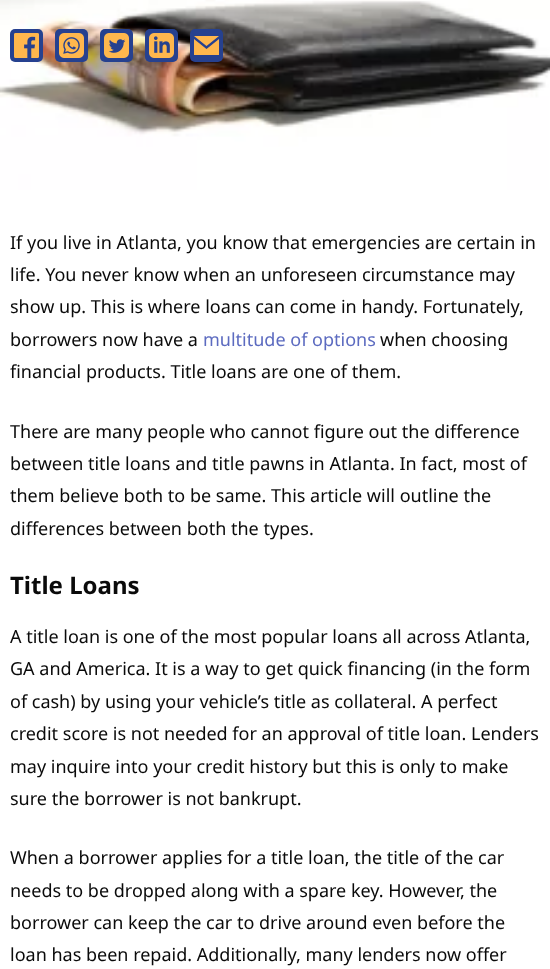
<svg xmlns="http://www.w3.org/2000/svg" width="550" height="969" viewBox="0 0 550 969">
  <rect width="100%" height="100%" fill="#ffffff"/>
  <image x="0" y="0" width="550" height="190" href="img1.png"/>
  <rect x="10" y="29" width="33" height="33" rx="5" fill="#26418f"/>
  <image x="14" y="33" width="25" height="25" href="img2.png"/>
  <rect x="55" y="29" width="33" height="33" rx="5" fill="#26418f"/>
  <image x="59" y="33" width="25" height="25" href="img3.png"/>
  <rect x="100" y="29" width="33" height="33" rx="5" fill="#26418f"/>
  <image x="104" y="33" width="25" height="25" href="img4.png"/>
  <rect x="145" y="29" width="33" height="33" rx="5" fill="#26418f"/>
  <image x="149" y="33" width="25" height="25" href="img5.png"/>
  <rect x="190" y="29" width="33" height="33" rx="5" fill="#26418f"/>
  <path d="M206.5 46L194 36H219ZM206.5 49L194 39V55H219V39Z" fill="#ffb74d"/>
  <text x="10" y="249" font-family="Noto Sans" font-size="18" fill="#0a0a0a">If you live in Atlanta, you know that emergencies are certain in</text>
  <text x="10" y="281" font-family="Noto Sans" font-size="18" fill="#0a0a0a">life. You never know when an unforeseen circumstance may</text>
  <text x="10" y="313" font-family="Noto Sans" font-size="18" fill="#0a0a0a">show up. This is where loans can come in handy. Fortunately,</text>
  <text x="10" y="346" font-family="Noto Sans" font-size="18" fill="#0a0a0a">borrowers now have a</text>
  <text x="203" y="346" font-family="Noto Sans" font-size="18" fill="#5c6bc0">multitude of options</text>
  <text x="380" y="346" font-family="Noto Sans" font-size="18" fill="#0a0a0a">when choosing</text>
  <text x="10" y="378" font-family="Noto Sans" font-size="18" fill="#0a0a0a">financial products. Title loans are one of them.</text>
  <text x="10" y="438" font-family="Noto Sans" font-size="18" fill="#0a0a0a">There are many people who cannot figure out the difference</text>
  <text x="10" y="470" font-family="Noto Sans" font-size="18" fill="#0a0a0a">between title loans and title pawns in Atlanta. In fact, most of</text>
  <text x="10" y="502" font-family="Noto Sans" font-size="18" fill="#0a0a0a">them believe both to be same. This article will outline the</text>
  <text x="10" y="535" font-family="Noto Sans" font-size="18" fill="#0a0a0a">differences between both the types.</text>
  <text x="10" y="594" font-family="Noto Sans" font-size="24" font-weight="bold" fill="#0a0a0a">Title Loans</text>
  <text x="10" y="643" font-family="Noto Sans" font-size="18" fill="#0a0a0a">A title loan is one of the most popular loans all across Atlanta,</text>
  <text x="10" y="675" font-family="Noto Sans" font-size="18" fill="#0a0a0a">GA and America. It is a way to get quick financing (in the form</text>
  <text x="10" y="708" font-family="Noto Sans" font-size="18" fill="#0a0a0a">of cash) by using your vehicle’s title as collateral. A perfect</text>
  <text x="10" y="740" font-family="Noto Sans" font-size="18" fill="#0a0a0a">credit score is not needed for an approval of title loan. Lenders</text>
  <text x="10" y="773" font-family="Noto Sans" font-size="18" fill="#0a0a0a">may inquire into your credit history but this is only to make</text>
  <text x="10" y="805" font-family="Noto Sans" font-size="18" fill="#0a0a0a">sure the borrower is not bankrupt.</text>
  <text x="10" y="864" font-family="Noto Sans" font-size="18" fill="#0a0a0a">When a borrower applies for a title loan, the title of the car</text>
  <text x="10" y="897" font-family="Noto Sans" font-size="18" fill="#0a0a0a">needs to be dropped along with a spare key. However, the</text>
  <text x="10" y="929" font-family="Noto Sans" font-size="18" fill="#0a0a0a">borrower can keep the car to drive around even before the</text>
  <text x="10" y="961" font-family="Noto Sans" font-size="18" fill="#0a0a0a">loan has been repaid. Additionally, many lenders now offer</text>
</svg>
